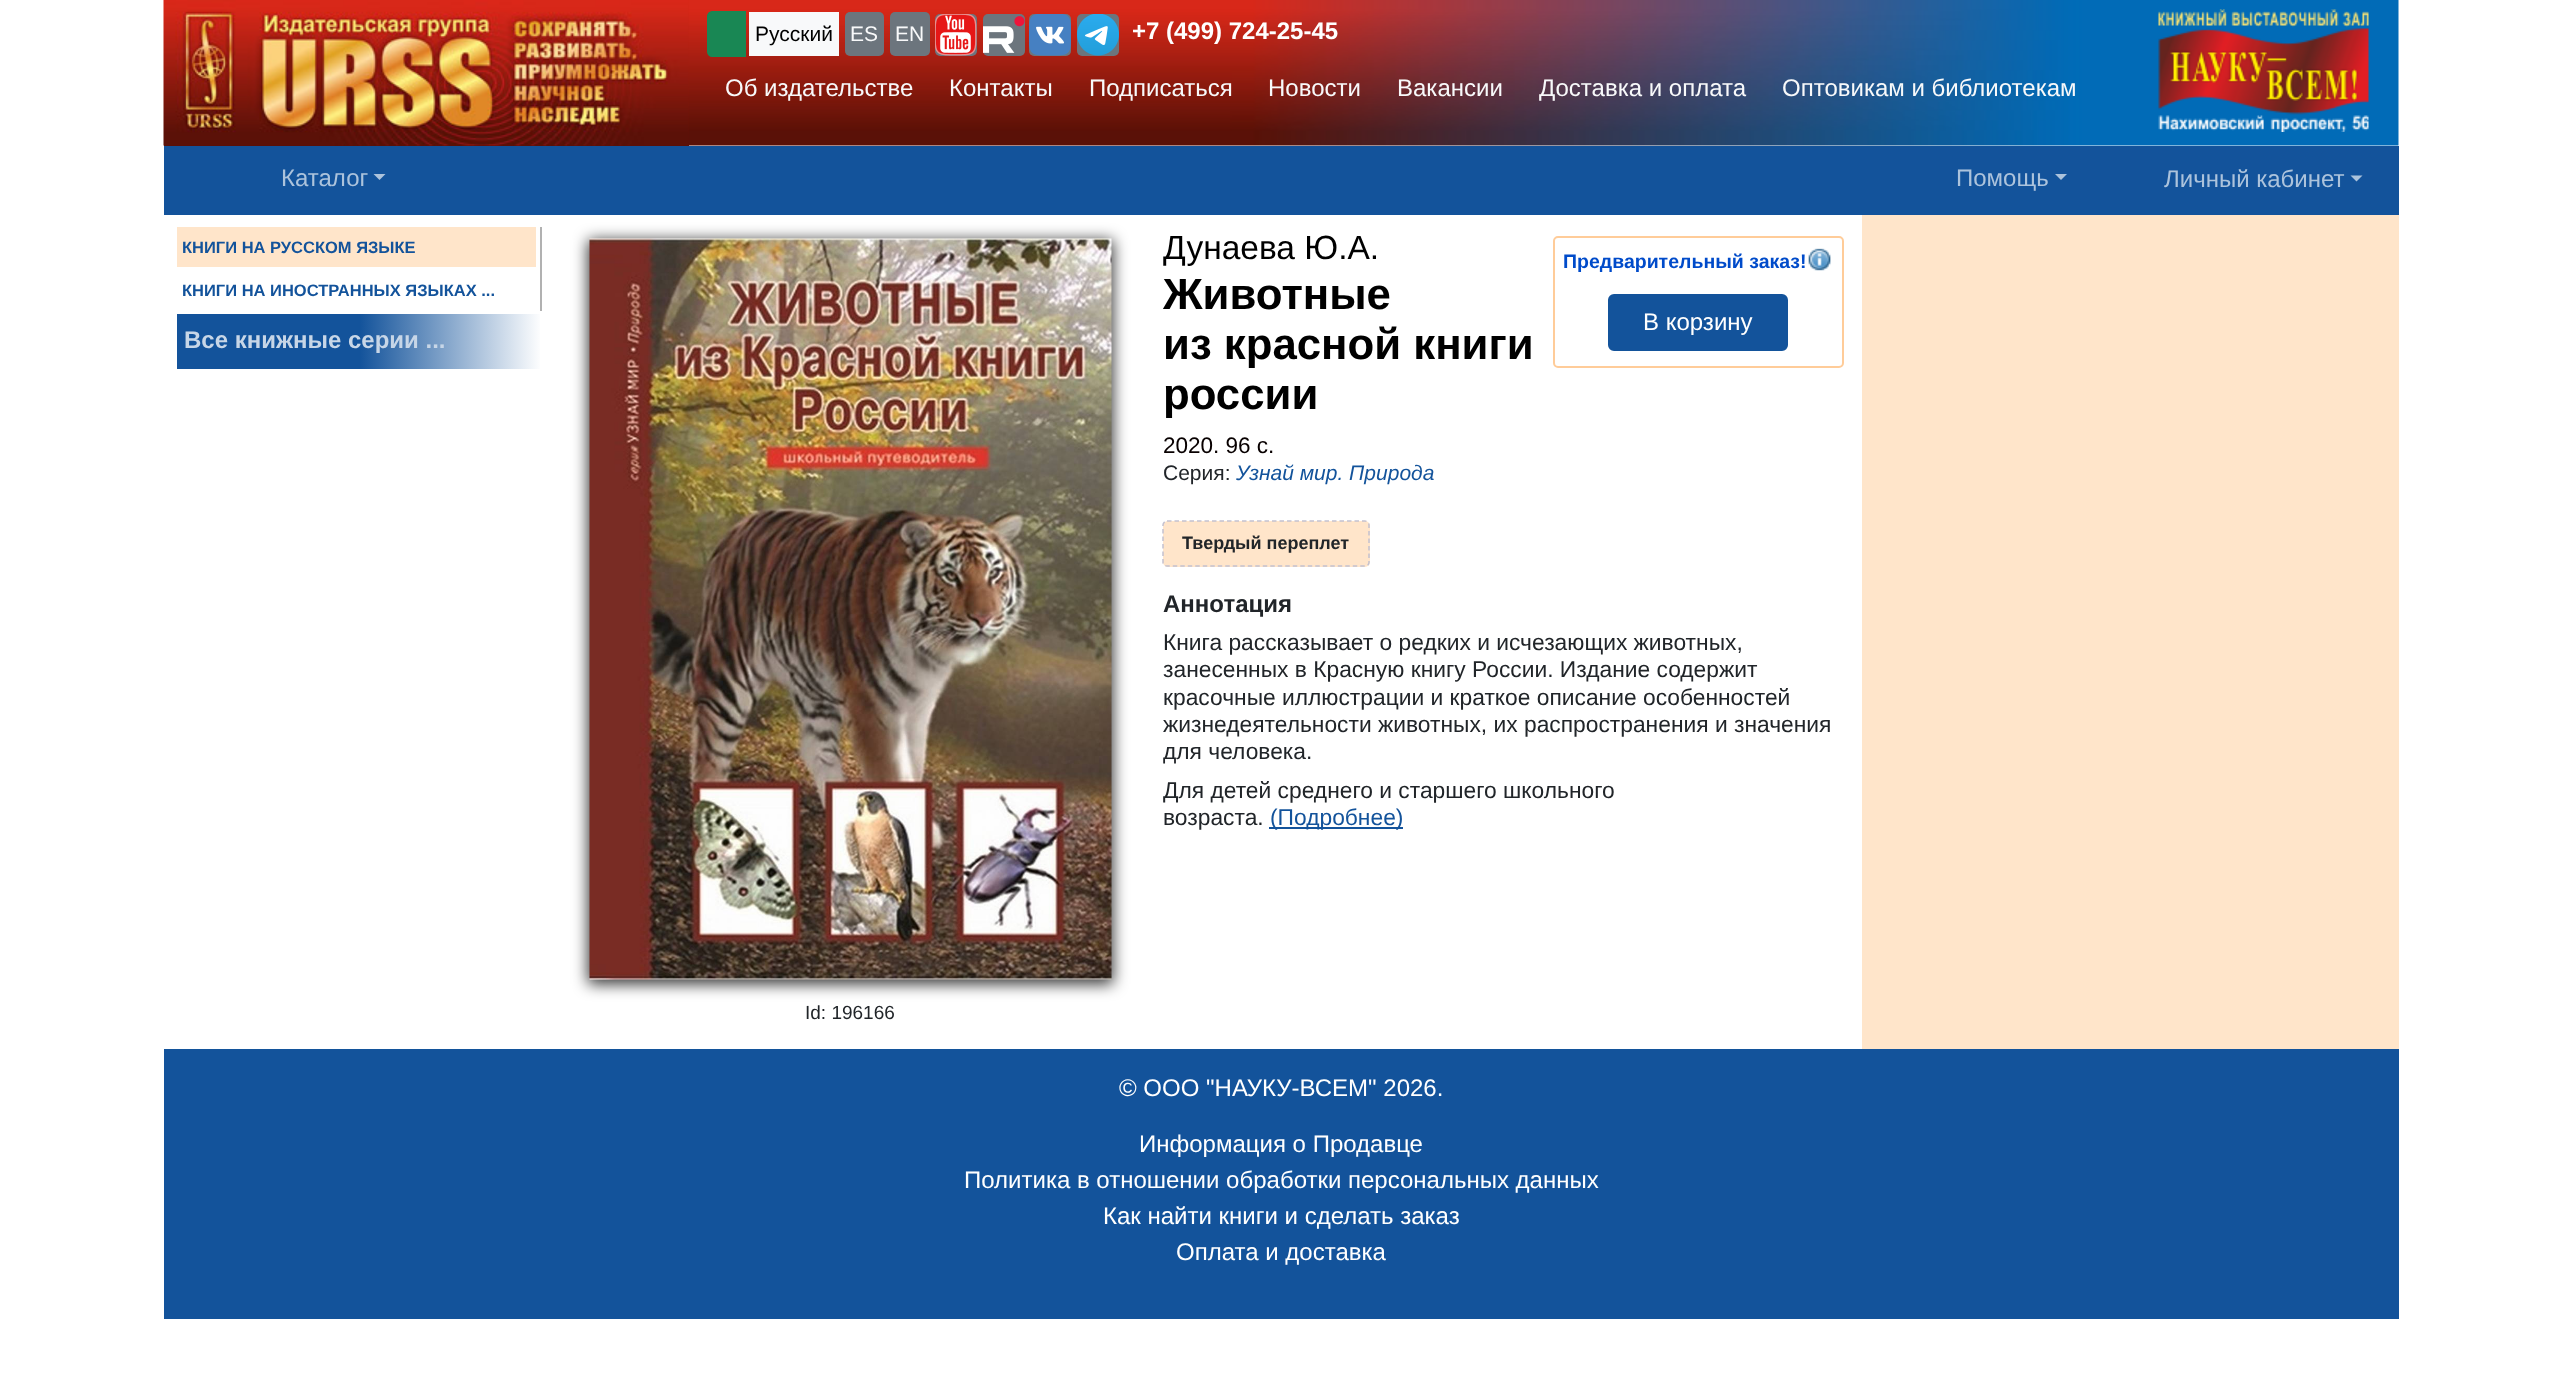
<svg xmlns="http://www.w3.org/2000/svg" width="2561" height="1380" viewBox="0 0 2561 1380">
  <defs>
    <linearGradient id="g1" gradientUnits="userSpaceOnUse" x1="426" y1="0" x2="426" y2="146"><stop offset="0" stop-color="#d82818"/><stop offset="1" stop-color="#5b1108"/></linearGradient>
    <linearGradient id="g2" gradientUnits="userSpaceOnUse" x1="177" y1="341" x2="542" y2="341"><stop offset="0" stop-color="#13539b"/><stop offset="0.5" stop-color="#13539b"/><stop offset="1" stop-color="#ffffff"/></linearGradient>
    <filter id="blur1" x="-50%" y="-200%" width="200%" height="500%"><feGaussianBlur stdDeviation="7.5"/></filter>
  </defs>
  <rect width="100%" height="100%" fill="#ffffff"/>
  <rect x="164" y="0" width="525" height="146" fill="url(#g1)"/>
  <image x="163" y="0" width="526" height="146" href="img1.png"/>
  <image x="688" y="0" width="1711" height="146" href="img2.png"/>
  <path d="M712 12H745V56H712C710 56 708 54 708 52V16C708 14 710 12 712 12Z" fill="#198754" stroke="#198754" stroke-width="2"/>
  <rect x="749" y="12" width="90" height="44" fill="#f8f9fa"/>
  <text x="755" y="41" font-family="Liberation Sans" font-size="21" fill="#000000">Русский</text>
  <rect x="845" y="12" width="39" height="44" rx="5" fill="#6c757d"/>
  <text x="850" y="41" font-family="Liberation Sans" font-size="21" fill="#f8f9fa">ES</text>
  <rect x="890" y="12" width="40" height="44" rx="5" fill="#6c757d"/>
  <text x="895" y="41" font-family="Liberation Sans" font-size="21" fill="#f8f9fa">EN</text>
  <rect x="935" y="14" width="42" height="42" rx="5" fill="#6c757d"/>
  <image x="935" y="14" width="42" height="42" href="img3.png"/>
  <rect x="983" y="14" width="42" height="42" rx="5" fill="#6c757d"/>
  <image x="983" y="16" width="42" height="37" href="img4.png"/>
  <rect x="1029" y="14" width="42" height="42" rx="5" fill="#6c757d"/>
  <image x="1029" y="14" width="42" height="42" href="img5.png"/>
  <rect x="1077" y="14" width="42" height="42" rx="5" fill="#6c757d"/>
  <image x="1077" y="14" width="42" height="42" href="img6.png"/>
  <text x="1132" y="39" font-family="Liberation Sans" font-size="24" font-weight="bold" fill="#ffffff">+7 (499) 724-25-45</text>
  <text x="725" y="96" font-family="Liberation Sans" font-size="24" fill="#f8f9fa">Об издательстве</text>
  <text x="949" y="96" font-family="Liberation Sans" font-size="24" fill="#f8f9fa">Контакты</text>
  <text x="1089" y="96" font-family="Liberation Sans" font-size="24" fill="#f8f9fa">Подписаться</text>
  <text x="1268" y="96" font-family="Liberation Sans" font-size="24" fill="#f8f9fa">Новости</text>
  <text x="1397" y="96" font-family="Liberation Sans" font-size="24" fill="#f8f9fa">Вакансии</text>
  <text x="1539" y="96" font-family="Liberation Sans" font-size="24" fill="#f8f9fa">Доставка и оплата</text>
  <text x="1782" y="96" font-family="Liberation Sans" font-size="24" fill="#f8f9fa">Оптовикам и библиотекам</text>
  <image x="2158" y="9" width="211" height="123" href="img7.png"/>
  <rect x="164" y="146" width="2235" height="69" fill="#13539b"/>
  <text x="281" y="186" font-family="Liberation Sans" font-size="24" fill="#acc3dc">Каталог</text>
  <path d="M373.5 174H385.5L379.5 180Z" fill="#acc3dc"/>
  <text x="1956" y="186" font-family="Liberation Sans" font-size="24" fill="#acc3dc">Помощь</text>
  <path d="M2055 174H2067L2061 180Z" fill="#acc3dc"/>
  <text x="2164" y="187" font-family="Liberation Sans" font-size="24" fill="#acc3dc">Личный кабинет</text>
  <path d="M2350.5 175.5H2362.5L2356.5 181.5Z" fill="#acc3dc"/>
  <rect x="540" y="227" width="2" height="84" fill="#b1b1b1"/>
  <rect x="177" y="227" width="359" height="40" fill="#ffe5ca"/>
  <text x="182" y="253" font-family="Liberation Sans" font-size="16.5" font-weight="bold" fill="#13539b">КНИГИ НА РУССКОМ ЯЗЫКЕ</text>
  <text x="182" y="296" font-family="Liberation Sans" font-size="16.5" font-weight="bold" fill="#13539b">КНИГИ НА ИНОСТРАННЫХ ЯЗЫКАХ ...</text>
  <rect x="177" y="314" width="363" height="55" fill="url(#g2)"/>
  <text x="184" y="348" font-family="Liberation Sans" font-size="24" font-weight="bold" fill="#c7d6e7">Все книжные серии ...</text>
  <text x="1163" y="259" font-family="Liberation Sans" font-size="33.5" fill="#000000">Дунаева Ю.А.</text>
  <text x="1163" y="309" font-family="Liberation Sans" font-size="43.75" font-weight="bold" fill="#000000">Животные</text>
  <text x="1163" y="359" font-family="Liberation Sans" font-size="43.75" font-weight="bold" fill="#000000">из красной книги</text>
  <text x="1163" y="409" font-family="Liberation Sans" font-size="43.75" font-weight="bold" fill="#000000">россии</text>
  <rect x="1554" y="237" width="289" height="130" rx="4" fill="none" stroke="#ffcc99" stroke-width="2"/>
  <text x="1563" y="268" font-family="Liberation Sans" font-size="19.5" font-weight="bold" fill="#004bca">Предварительный заказ!</text>
  <image x="1808" y="248" width="23" height="23" href="img8.png"/>
  <rect x="1609" y="295" width="178" height="55" rx="5" fill="#13539b" stroke="#13539b" stroke-width="2"/>
  <text x="1643" y="330" font-family="Liberation Sans" font-size="24" fill="#ffffff">В корзину</text>
  <text x="1163" y="453" font-family="Liberation Sans" font-size="22.5" fill="#080000">2020. 96 с.</text>
  <text x="1163" y="480" font-family="Liberation Sans" font-size="21" fill="#212529">Серия:</text>
  <text x="1236" y="480" font-family="Liberation Sans" font-size="21" font-style="italic" fill="#13539b">Узнай мир. Природа</text>
  <rect x="1163" y="521" width="207" height="46" rx="5" fill="#ffe5ca"/>
  <path d="M1167 521H1365C1367 521 1369 523 1369 525V562.5C1369 564.5 1367 566 1365 566H1167C1165 566 1163 564.5 1163 562.5V525C1163 523 1165 521 1167 521Z" fill="none" stroke="#c4c1cf" stroke-width="1.5" stroke-dasharray="4.5 3"/>
  <text x="1182" y="549" font-family="Liberation Sans" font-size="18" font-weight="bold" fill="#212529">Твердый переплет</text>
  <rect x="588" y="240" width="525" height="744" fill="#000000" fill-opacity="0.8" filter="url(#blur1)"/>
  <image x="589" y="238" width="523" height="742" href="img9.png"/>
  <text x="805" y="1019" font-family="Liberation Sans" font-size="19" fill="#212529">Id: 196166</text>
  <text x="1163" y="612" font-family="Liberation Sans" font-size="24" font-weight="bold" fill="#212529">Аннотация</text>
  <text x="1163" y="650" font-family="Liberation Sans" font-size="22.8" fill="#212529">Книга рассказывает о редких и исчезающих животных,</text>
  <text x="1163" y="677" font-family="Liberation Sans" font-size="22.8" fill="#212529">занесенных в Красную книгу России. Издание содержит</text>
  <text x="1163" y="705" font-family="Liberation Sans" font-size="22.8" fill="#212529">красочные иллюстрации и краткое описание особенностей</text>
  <text x="1163" y="732" font-family="Liberation Sans" font-size="22.8" fill="#212529">жизнедеятельности животных, их распространения и значения</text>
  <text x="1163" y="759" font-family="Liberation Sans" font-size="22.8" fill="#212529">для человека.</text>
  <text x="1163" y="798" font-family="Liberation Sans" font-size="22.8" fill="#212529">Для детей среднего и старшего школьного</text>
  <text x="1163" y="825" font-family="Liberation Sans" font-size="22.8" fill="#212529">возраста.</text>
  <rect x="1269" y="827" width="134" height="2" fill="#13539b"/>
  <text x="1270" y="825" font-family="Liberation Sans" font-size="22.8" fill="#13539b">(Подробнее)</text>
  <rect x="1862" y="215" width="537" height="834" fill="#ffe5ca"/>
  <rect x="164" y="1049" width="2235" height="270" fill="#13539b"/>
  <text x="1119" y="1096" font-family="Liberation Sans" font-size="24" fill="#ffffff">© ООО "НАУКУ-ВСЕМ" 2026.</text>
  <text x="1139" y="1152" font-family="Liberation Sans" font-size="24" fill="#ffffff">Информация о Продавце</text>
  <text x="964" y="1188" font-family="Liberation Sans" font-size="24" fill="#ffffff">Политика в отношении обработки персональных данных</text>
  <text x="1103" y="1224" font-family="Liberation Sans" font-size="24" fill="#ffffff">Как найти книги и сделать заказ</text>
  <text x="1176" y="1260" font-family="Liberation Sans" font-size="24" fill="#ffffff">Оплата и доставка</text>
</svg>
